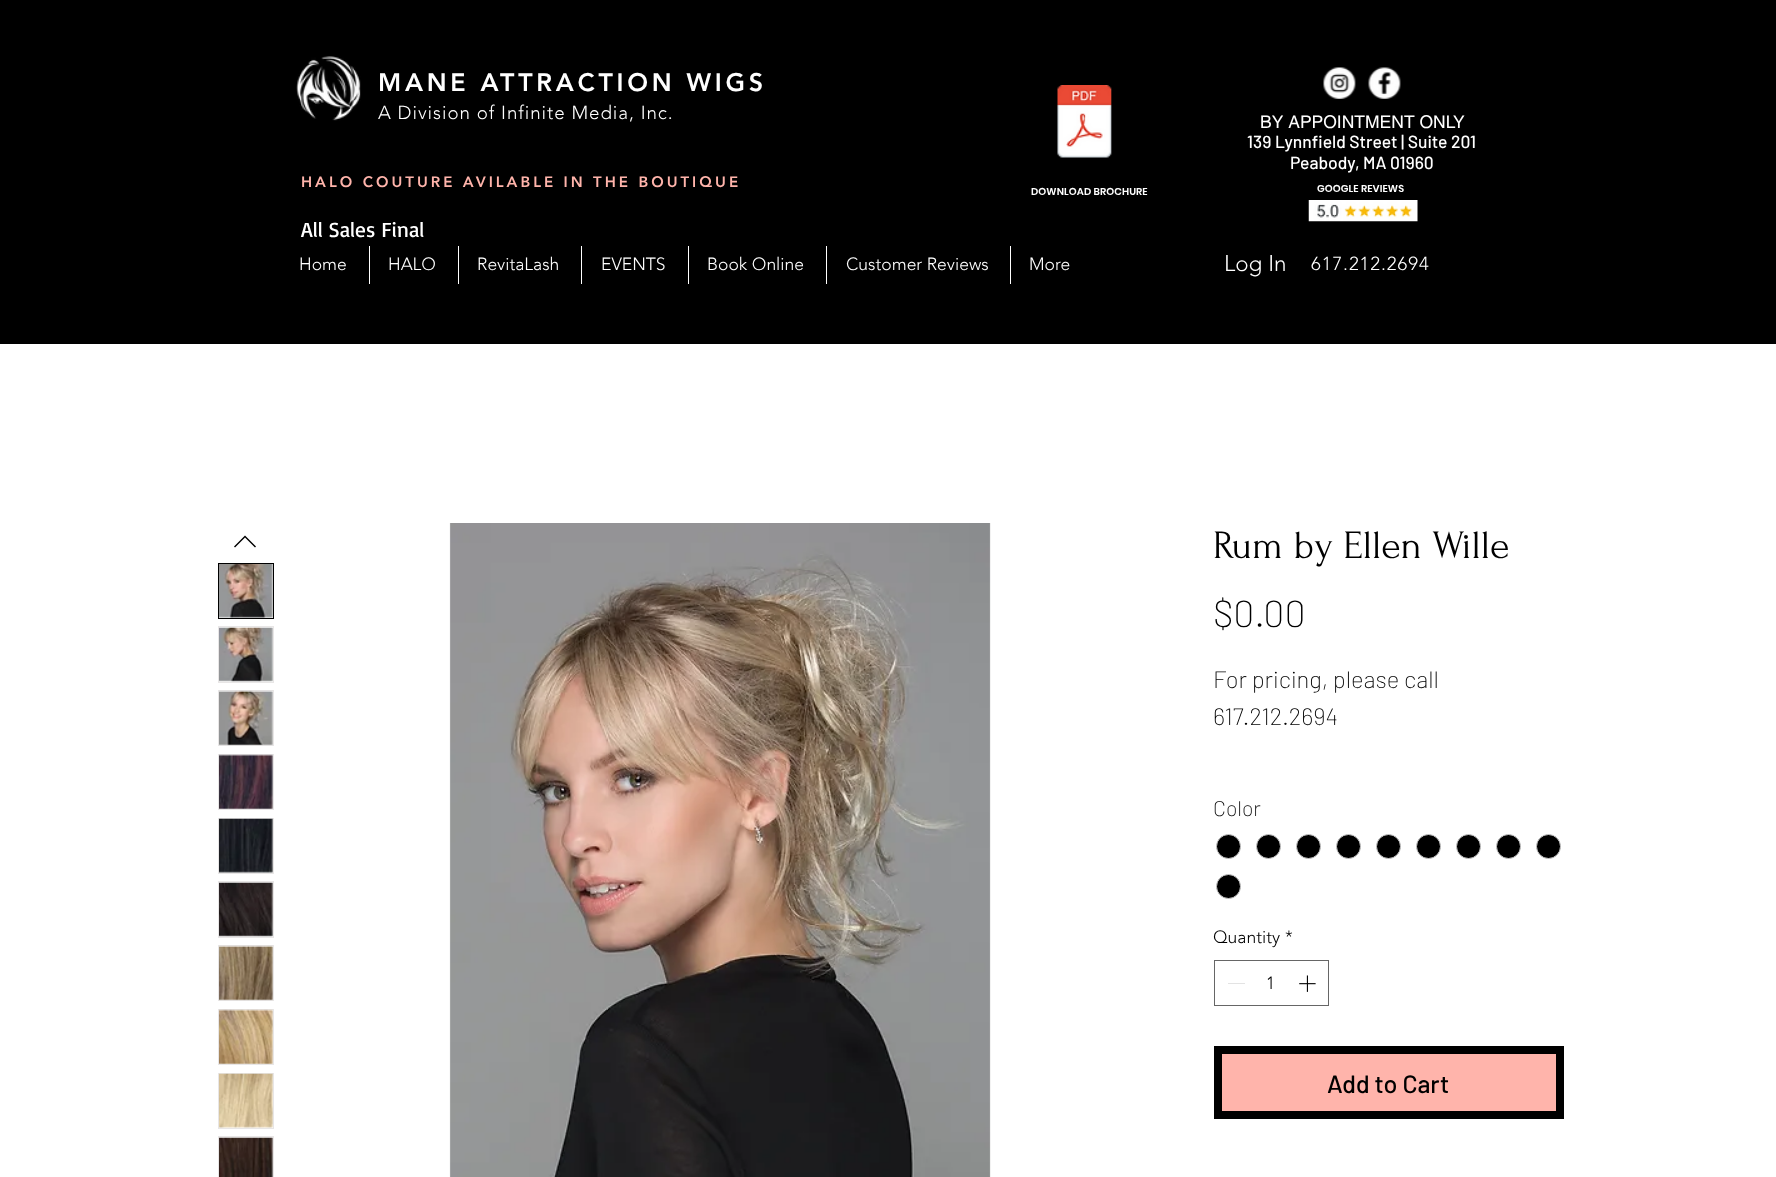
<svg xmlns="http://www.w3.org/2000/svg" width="1776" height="1177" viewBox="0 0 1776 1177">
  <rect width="100%" height="100%" fill="#ffffff"/>
  <rect x="0" y="0" width="1776" height="344" fill="#000000"/>
  <image x="296" y="56" width="65" height="65" href="img1.png"/>
  <text x="378" y="91" font-family="'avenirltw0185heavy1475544'" font-size="25" font-weight="900" letter-spacing="3.75" fill="#ffffff">MANE ATTRACTION WIGS</text>
  <text x="378" y="119" font-family="'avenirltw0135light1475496'" font-size="18.75" font-weight="300" letter-spacing="0.95" fill="#ffffff">A Division of Infinite Media, Inc.</text>
  <image x="1057" y="85" width="55" height="73" href="img2.png"/>
  <image x="1323" y="67" width="33" height="32" href="img3.png"/>
  <image x="1368" y="67" width="33" height="32" href="img4.png"/>
  <text x="1260" y="128" font-family="helvetica" font-size="17.5" fill="#ffffff">BY APPOINTMENT ONLY</text>
  <text x="1247" y="148" font-family="Barlow" font-size="17.5" font-weight="500" fill="#ffffff">139 Lynnfield Street | Suite 201</text>
  <text x="1290" y="169" font-family="Barlow" font-size="17.5" font-weight="500" fill="#ffffff">Peabody, MA 01960</text>
  <text x="301" y="187" font-family="'avenirltw0185heavy1475544'" font-size="15" font-weight="900" letter-spacing="3" fill="#ffb4ab">HALO COUTURE AVILABLE IN THE BOUTIQUE</text>
  <text x="1031" y="195" font-family="Poppins" font-size="10" font-weight="600" letter-spacing="0.1" fill="#ffffff">DOWNLOAD BROCHURE</text>
  <text x="1317" y="192" font-family="Poppins" font-size="10" font-weight="600" letter-spacing="0.1" fill="#ffffff">GOOGLE REVIEWS</text>
  <image x="1308" y="200" width="110" height="22" href="img5.png"/>
  <text x="301" y="237" font-family="Basic" font-size="21.25" fill="#ffffff">All Sales Final</text>
  <text x="299" y="270" font-family="'avenirltw0135light1475496'" font-size="17.5" font-weight="300" fill="#ffffff">Home</text>
  <rect x="369" y="246" width="1" height="38" fill="#ffffff"/>
  <text x="388" y="270" font-family="'avenirltw0135light1475496'" font-size="17.5" font-weight="300" fill="#ffffff">HALO</text>
  <rect x="458" y="246" width="1" height="38" fill="#ffffff"/>
  <text x="477" y="270" font-family="'avenirltw0135light1475496'" font-size="17.5" font-weight="300" fill="#ffffff">RevitaLash</text>
  <rect x="581" y="246" width="1" height="38" fill="#ffffff"/>
  <text x="601" y="270" font-family="'avenirltw0135light1475496'" font-size="17.5" font-weight="300" fill="#ffffff">EVENTS</text>
  <rect x="688" y="246" width="1" height="38" fill="#ffffff"/>
  <text x="707" y="270" font-family="'avenirltw0135light1475496'" font-size="17.5" font-weight="300" fill="#ffffff">Book Online</text>
  <rect x="826" y="246" width="1" height="38" fill="#ffffff"/>
  <text x="846" y="270" font-family="'avenirltw0135light1475496'" font-size="17.5" font-weight="300" fill="#ffffff">Customer Reviews</text>
  <rect x="1010" y="246" width="1" height="38" fill="#ffffff"/>
  <text x="1029" y="270" font-family="'avenirltw0135light1475496'" font-size="17.5" font-weight="300" fill="#ffffff">More</text>
  <text x="1224" y="271" font-family="'avenirltw0135light1475496'" font-size="22.5" font-weight="300" fill="#ffffff">Log In</text>
  <text x="1311" y="270" font-family="'avenirltw0135light1475496'" font-size="18.75" font-weight="300" letter-spacing="0.95" fill="#ffffff">617.212.2694</text>
  <path d="M245 535.5L256 546.5L255 547.5L245 537.5L235 547.5L234 546.5Z" fill="#000000" fill-rule="evenodd"/>
  <rect x="218.5" y="563.5" width="55" height="55" fill="none" stroke="#000000"/>
  <image x="219" y="564" width="54" height="54" href="img6.png"/>
  <rect x="218.5" y="626.5" width="55" height="56" fill="none" stroke="#e8e6e6"/>
  <image x="219" y="627" width="54" height="55" href="img7.png"/>
  <rect x="218.5" y="690.5" width="55" height="55" fill="none" stroke="#e8e6e6"/>
  <image x="219" y="690" width="54" height="56" href="img8.png"/>
  <rect x="218.5" y="754.5" width="55" height="55" fill="none" stroke="#e8e6e6"/>
  <image x="219" y="754" width="54" height="55" href="img9.png"/>
  <rect x="218.5" y="818.5" width="55" height="55" fill="none" stroke="#e8e6e6"/>
  <image x="219" y="818" width="54" height="55" href="img10.png"/>
  <rect x="218.5" y="881.5" width="55" height="56" fill="none" stroke="#e8e6e6"/>
  <image x="219" y="882" width="54" height="55" href="img11.png"/>
  <rect x="218.5" y="945.5" width="55" height="55" fill="none" stroke="#e8e6e6"/>
  <image x="219" y="945" width="54" height="56" href="img12.png"/>
  <rect x="218.5" y="1009.5" width="55" height="55" fill="none" stroke="#e8e6e6"/>
  <image x="219" y="1009" width="54" height="55" href="img13.png"/>
  <rect x="218.5" y="1073.5" width="55" height="55" fill="none" stroke="#e8e6e6"/>
  <image x="219" y="1073" width="54" height="55" href="img14.png"/>
  <rect x="218.5" y="1136.5" width="55" height="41" fill="none" stroke="#e8e6e6"/>
  <image x="219" y="1137" width="54" height="40" href="img15.png"/>
  <image x="449" y="523" width="542" height="654" href="img16.png"/>
  <text x="1213" y="558" font-family="Forum" font-size="40" fill="#000000">Rum by Ellen Wille</text>
  <text x="1213" y="627" font-family="Barlow" font-size="37.5" font-weight="200" fill="#000000">$0.00</text>
  <text x="1213" y="688" font-family="Barlow" font-size="23.75" font-weight="200" fill="#000000">For pricing, please call</text>
  <text x="1213" y="725" font-family="Barlow" font-size="23.75" font-weight="200" fill="#000000">617.212.2694</text>
  <text x="1213" y="816" font-family="Barlow" font-size="21.25" font-weight="200" fill="#000000">Color</text>
  <circle cx="1228.5" cy="846.5" r="12" fill="#000000" stroke="#c9c9c9"/>
  <circle cx="1268.5" cy="846.5" r="12" fill="#000000" stroke="#c9c9c9"/>
  <circle cx="1308.5" cy="846.5" r="12" fill="#000000" stroke="#c9c9c9"/>
  <circle cx="1348.5" cy="846.5" r="12" fill="#000000" stroke="#c9c9c9"/>
  <circle cx="1388.5" cy="846.5" r="12" fill="#000000" stroke="#c9c9c9"/>
  <circle cx="1428.5" cy="846.5" r="12" fill="#000000" stroke="#c9c9c9"/>
  <circle cx="1468.5" cy="846.5" r="12" fill="#000000" stroke="#c9c9c9"/>
  <circle cx="1508.5" cy="846.5" r="12" fill="#000000" stroke="#c9c9c9"/>
  <circle cx="1548.5" cy="846.5" r="12" fill="#000000" stroke="#c9c9c9"/>
  <circle cx="1228.5" cy="886.5" r="12" fill="#000000" stroke="#c9c9c9"/>
  <text x="1213" y="943" font-family="'avenirltw0135light1475496'" font-size="17.5" font-weight="300" fill="#000000">Quantity</text>
  <text x="1285" y="943" font-family="'avenirltw0135light1475496'" font-size="17.5" font-weight="300" fill="#000000">*</text>
  <rect x="1214.5" y="960.5" width="114" height="45" fill="none" stroke="#666666"/>
  <rect x="1228" y="983" width="17" height="1" fill="#e3e3e3"/>
  <text x="1266" y="989" font-family="'avenirltw0135light1475496'" font-size="17.5" font-weight="300" fill="#000000">1</text>
  <image x="1299" y="975" width="17" height="17" href="img17.png"/>
  <rect x="1218" y="1050" width="342" height="65" fill="#ffb4ab" stroke="#000000" stroke-width="8"/>
  <text x="1327" y="1093" font-family="Barlow" font-size="25" font-weight="500" fill="#000000">Add to Cart</text>
</svg>
